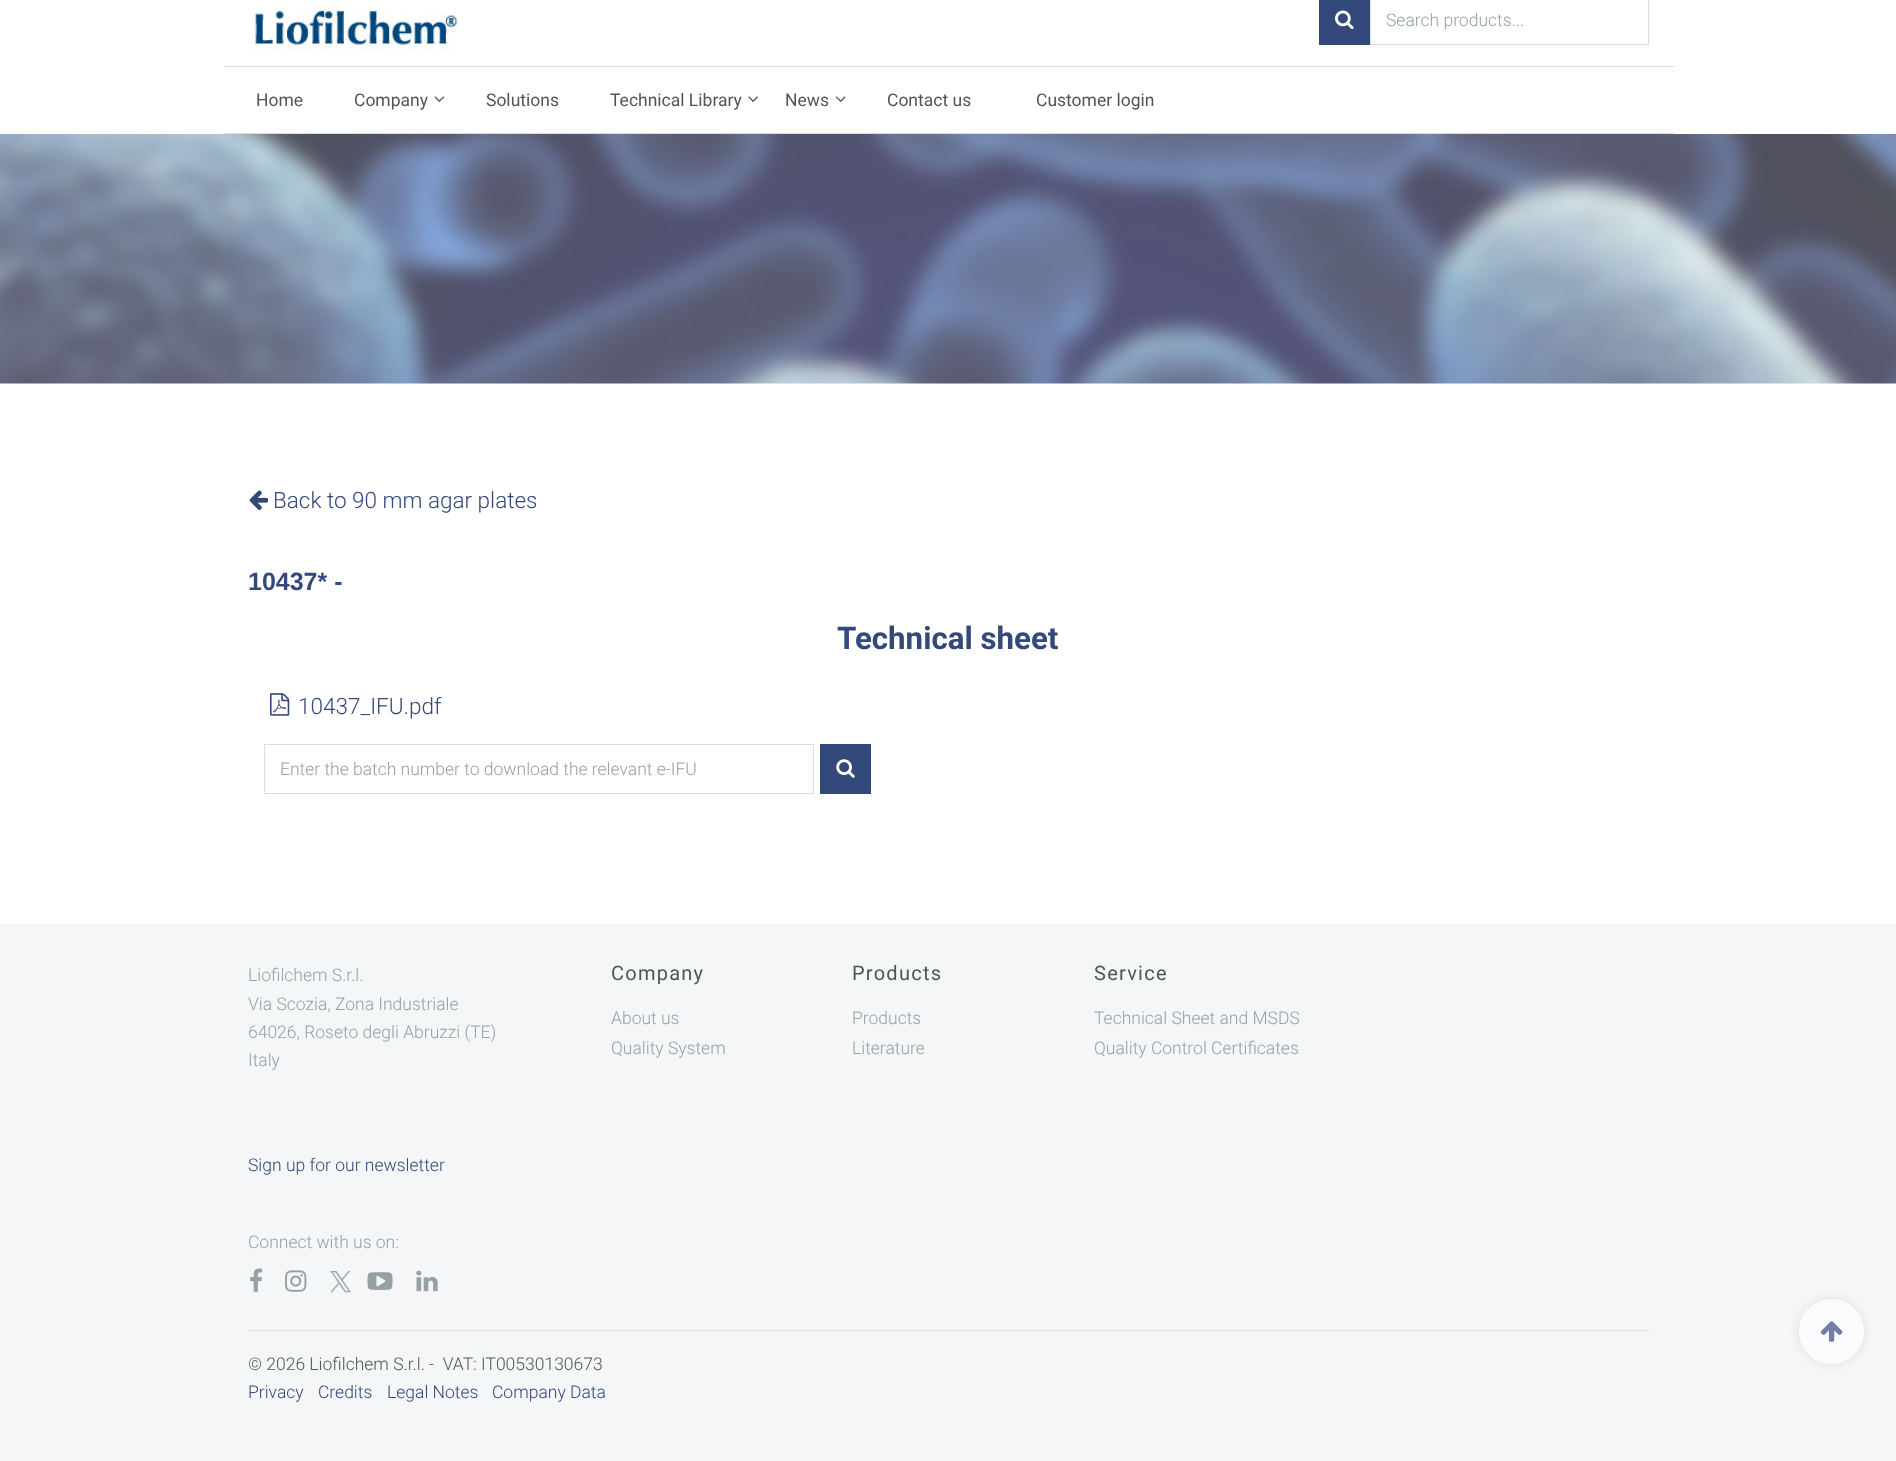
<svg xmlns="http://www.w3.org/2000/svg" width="1896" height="1461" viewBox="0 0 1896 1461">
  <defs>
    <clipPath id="clip1"><path d="M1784 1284H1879V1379H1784ZM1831.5 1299C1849.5 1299 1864 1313.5 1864 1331.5C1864 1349.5 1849.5 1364 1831.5 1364C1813.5 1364 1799 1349.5 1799 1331.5C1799 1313.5 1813.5 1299 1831.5 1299Z" clip-rule="evenodd"/></clipPath>
    <filter id="blur1" x="-50%" y="-200%" width="200%" height="500%"><feGaussianBlur stdDeviation="4.5"/></filter>
  </defs>
  <rect width="100%" height="100%" fill="#ffffff"/>
  <image x="249" y="4" width="209" height="47" href="img1.png"/>
  <rect x="1319" y="0" width="51" height="45" fill="#33497b"/>
  <image x="1335" y="10" width="19" height="20" href="img2.png"/>
  <rect x="1370.5" y="-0.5" width="278" height="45" fill="none" stroke="#dddddd"/>
  <text x="1386" y="26" font-family="Roboto" font-size="17.5" font-weight="300" fill="#96a1a3">Search products...</text>
  <rect x="224" y="66" width="1450" height="1" fill="#dadedf"/>
  <rect x="224" y="133" width="1450" height="1" fill="#dadedf"/>
  <text x="256" y="106" font-family="Roboto" font-size="17.5" fill="#505656">Home</text>
  <text x="354" y="106" font-family="Roboto" font-size="17.5" fill="#505656">Company</text>
  <image x="434" y="96" width="11" height="6" href="img3.png"/>
  <text x="486" y="106" font-family="Roboto" font-size="17.5" fill="#505656">Solutions</text>
  <text x="610" y="106" font-family="Roboto" font-size="17.5" fill="#505656">Technical Library</text>
  <image x="748" y="96" width="10" height="6" href="img4.png"/>
  <text x="785" y="106" font-family="Roboto" font-size="17.5" fill="#505656">News</text>
  <image x="835" y="96" width="11" height="6" href="img5.png"/>
  <text x="887" y="106" font-family="Roboto" font-size="17.5" fill="#505656">Contact us</text>
  <text x="1036" y="106" font-family="Roboto" font-size="17.5" fill="#505656">Customer login</text>
  <image x="0" y="134" width="1896" height="250" href="img6.png"/>
  <image x="249" y="490" width="20" height="20" href="img7.png"/>
  <text x="273" y="508" font-family="Roboto" font-size="22.5" font-weight="300" fill="#33497b">Back to 90 mm agar plates</text>
  <text x="248" y="590" font-family="Liberation Sans" font-size="25" font-weight="bold" fill="#33497b">10437* -</text>
  <text x="837" y="649" font-family="Roboto" font-size="31.25" font-weight="bold" fill="#33497b">Technical sheet</text>
  <image x="270" y="693" width="20" height="23" href="img8.png"/>
  <text x="298" y="714" font-family="Roboto" font-size="22.5" font-weight="300" fill="#33497b">10437_IFU.pdf</text>
  <rect x="264.5" y="744.5" width="549" height="49" fill="none" stroke="#dddddd"/>
  <text x="280" y="775" font-family="Roboto" font-size="17.5" font-weight="300" fill="#96a1a3">Enter the batch number to download the relevant e-IFU</text>
  <rect x="820" y="744" width="51" height="50" fill="#33497b"/>
  <image x="836" y="759" width="19" height="19" href="img9.png"/>
  <rect x="0" y="924" width="1896" height="537" fill="#f4f6f7"/>
  <text x="248" y="981" font-family="Roboto" font-size="17.5" font-weight="300" fill="#96a1a3">Liofilchem S.r.l.</text>
  <text x="248" y="1010" font-family="Roboto" font-size="17.5" font-weight="300" fill="#96a1a3">Via Scozia, Zona Industriale</text>
  <text x="248" y="1038" font-family="Roboto" font-size="17.5" font-weight="300" fill="#96a1a3">64026, Roseto degli Abruzzi (TE)</text>
  <text x="248" y="1066" font-family="Roboto" font-size="17.5" font-weight="300" fill="#96a1a3">Italy</text>
  <text x="611" y="980" font-family="Roboto" font-size="20" letter-spacing="1.25" fill="#505656">Company</text>
  <text x="611" y="1024" font-family="Roboto" font-size="17.5" font-weight="300" fill="#96a1a3">About us</text>
  <text x="611" y="1054" font-family="Roboto" font-size="17.5" font-weight="300" fill="#96a1a3">Quality System</text>
  <text x="852" y="980" font-family="Roboto" font-size="20" letter-spacing="1.25" fill="#505656">Products</text>
  <text x="852" y="1024" font-family="Roboto" font-size="17.5" font-weight="300" fill="#96a1a3">Products</text>
  <text x="852" y="1054" font-family="Roboto" font-size="17.5" font-weight="300" fill="#96a1a3">Literature</text>
  <text x="1094" y="980" font-family="Roboto" font-size="20" letter-spacing="1.25" fill="#505656">Service</text>
  <text x="1094" y="1024" font-family="Roboto" font-size="17.5" font-weight="300" fill="#96a1a3">Technical Sheet and MSDS</text>
  <text x="1094" y="1054" font-family="Roboto" font-size="17.5" font-weight="300" fill="#96a1a3">Quality Control Certificates</text>
  <text x="248" y="1171" font-family="Roboto" font-size="17.5" font-weight="300" fill="#33497b">Sign up for our newsletter</text>
  <text x="248" y="1248" font-family="Roboto" font-size="17.5" font-weight="300" fill="#96a1a3">Connect with us on:</text>
  <image x="250" y="1268" width="13" height="24" href="img10.png"/>
  <image x="285" y="1270" width="22" height="22" href="img11.png"/>
  <image x="330" y="1271" width="21" height="22" href="img12.png"/>
  <image x="367" y="1272" width="26" height="18" href="img13.png"/>
  <image x="416" y="1270" width="22" height="22" href="img14.png"/>
  <rect x="249" y="1330" width="1400" height="1" fill="#dcddde"/>
  <text x="248" y="1370" font-family="Roboto" font-size="17.5" font-weight="300" fill="#505656" xml:space="preserve">© 2026 Liofilchem S.r.l. -  VAT: IT00530130673</text>
  <text x="248" y="1398" font-family="Roboto" font-size="17.5" font-weight="300" fill="#33497b">Privacy</text>
  <text x="318" y="1398" font-family="Roboto" font-size="17.5" font-weight="300" fill="#33497b">Credits</text>
  <text x="387" y="1398" font-family="Roboto" font-size="17.5" font-weight="300" fill="#33497b">Legal Notes</text>
  <text x="492" y="1398" font-family="Roboto" font-size="17.5" font-weight="300" fill="#33497b">Company Data</text>
  <g clip-path="url(#clip1)">
    <rect x="1799" y="1299" width="65" height="65" rx="32.5" fill="#494a4a" fill-opacity="0.15" filter="url(#blur1)"/>
  </g>
  <circle cx="1831.5" cy="1331.5" r="32.5" fill="#fcfcfd" fill-opacity="0.9"/>
  <image x="1820" y="1321" width="23" height="21" href="img15.png"/>
</svg>
